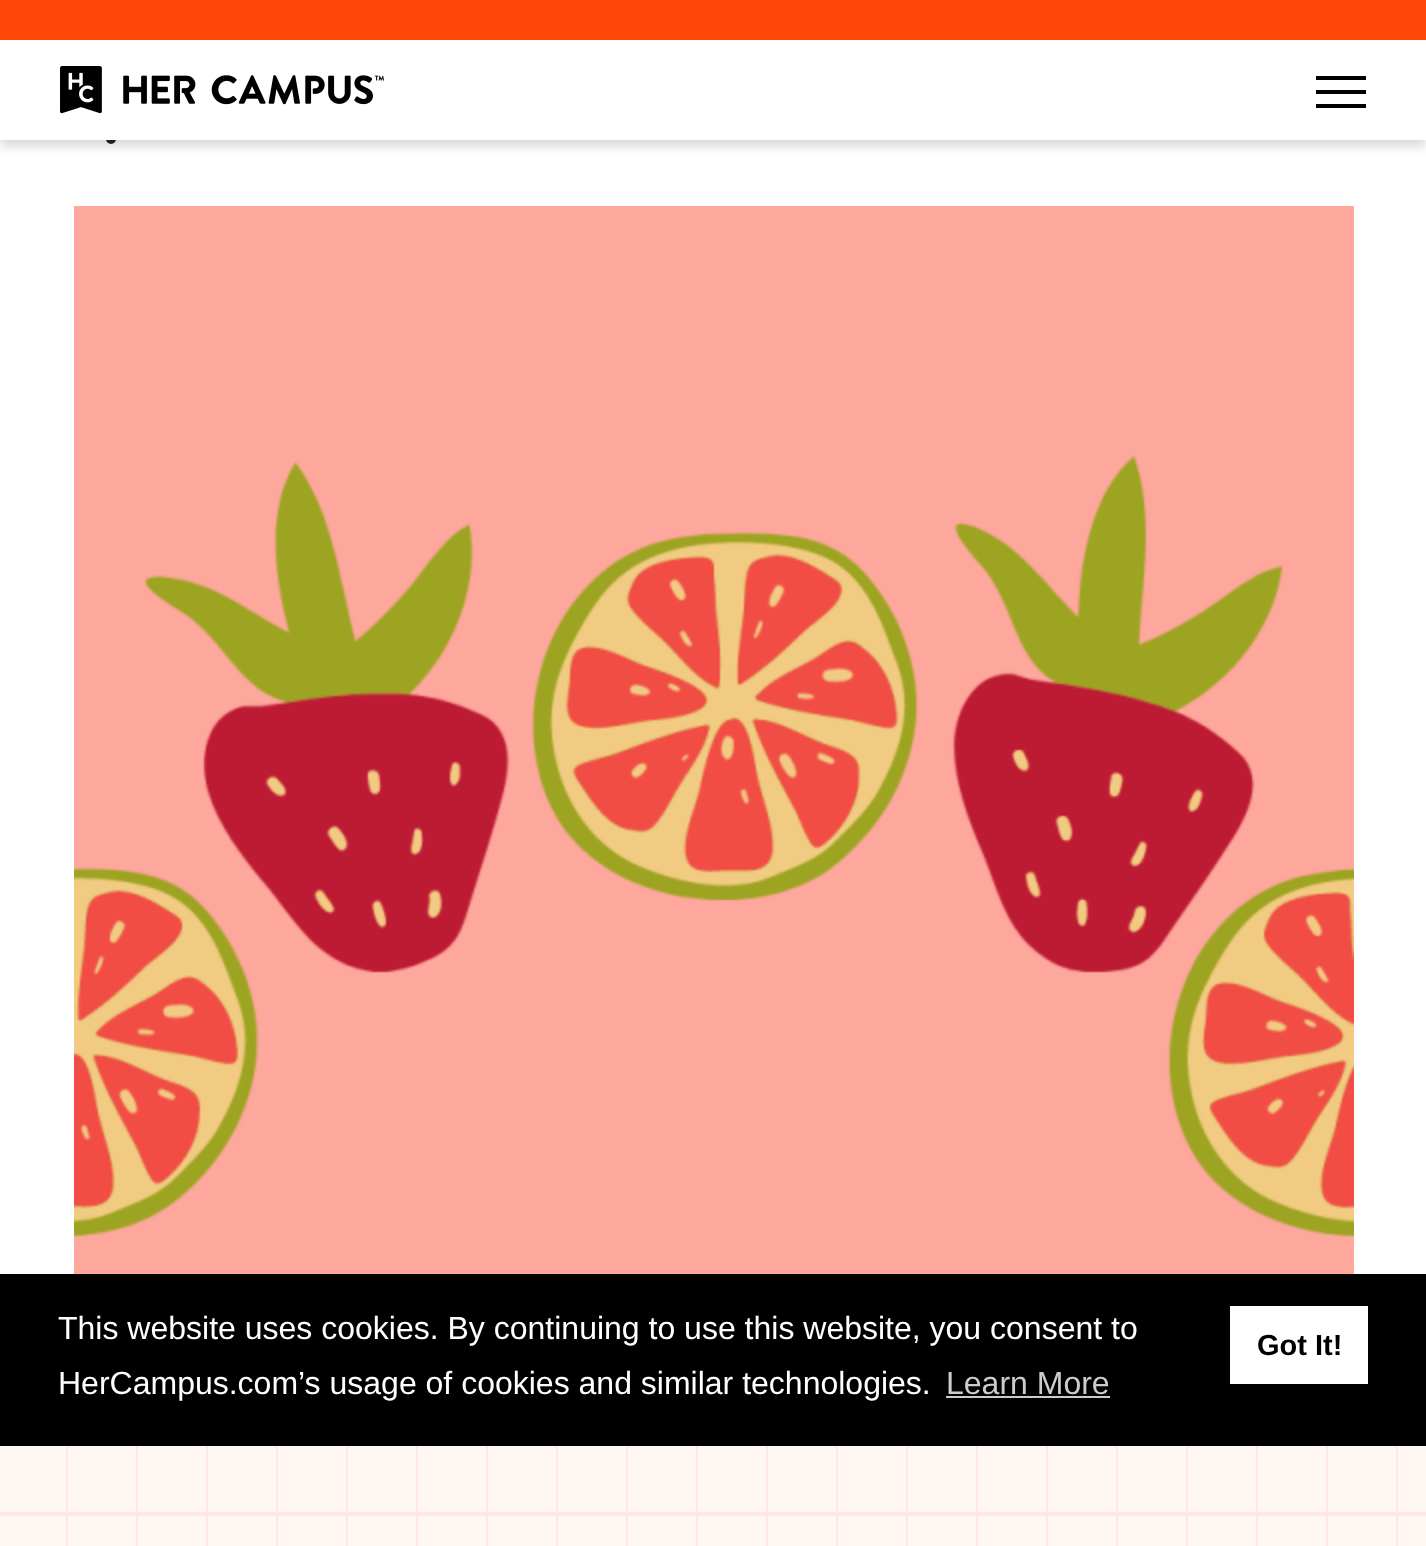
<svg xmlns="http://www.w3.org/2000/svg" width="1426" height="1546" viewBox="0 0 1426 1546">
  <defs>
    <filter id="blur1" x="-50%" y="-200%" width="200%" height="500%"><feGaussianBlur stdDeviation="6"/></filter>
  </defs>
  <rect width="100%" height="100%" fill="#ffffff"/>
  <circle cx="111" cy="139" r="5" fill="#212529"/>
  <rect x="0" y="6" width="1426" height="140" fill="#000000" fill-opacity="0.16" filter="url(#blur1)"/>
  <rect x="0" y="40" width="1426" height="100" fill="#ffffff"/>
  <rect x="0" y="0" width="1426" height="40" fill="#fe4709"/>
  <image x="60" y="66" width="324" height="48" href="img1.png"/>
  <rect x="1316" y="76" width="50" height="4" fill="#000000"/>
  <rect x="1316" y="90" width="50" height="4" fill="#000000"/>
  <rect x="1316" y="104" width="50" height="4" fill="#000000"/>
  <image x="74" y="206" width="1280" height="1068" href="img2.png"/>
  <rect x="0" y="1446" width="1426" height="100" fill="#fff7f4"/>
  <image x="66" y="1446" width="1332" height="100" href="img3.png"/>
  <rect x="0" y="1512" width="1426" height="4" fill="#ffe8e1"/>
  <rect x="0" y="1274" width="1426" height="172" fill="#000000"/>
  <text x="58" y="1339" font-family="Liberation Sans" font-size="32" fill="#ffffff">This website uses cookies. By continuing to use this website, you consent to</text>
  <rect x="1230" y="1306" width="138" height="78" fill="#ffffff"/>
  <text x="1257" y="1355" font-family="Liberation Sans" font-size="29" font-weight="bold" fill="#000000">Got It!</text>
  <text x="58" y="1394" font-family="Liberation Sans" font-size="32" fill="#ffffff">HerCampus.com’s usage of cookies and similar technologies.</text>
  <text x="946" y="1394" font-family="Liberation Sans" font-size="32" fill="#cccccc">Learn More</text>
  <rect x="946" y="1396" width="164" height="2" fill="#cccccc"/>
</svg>
